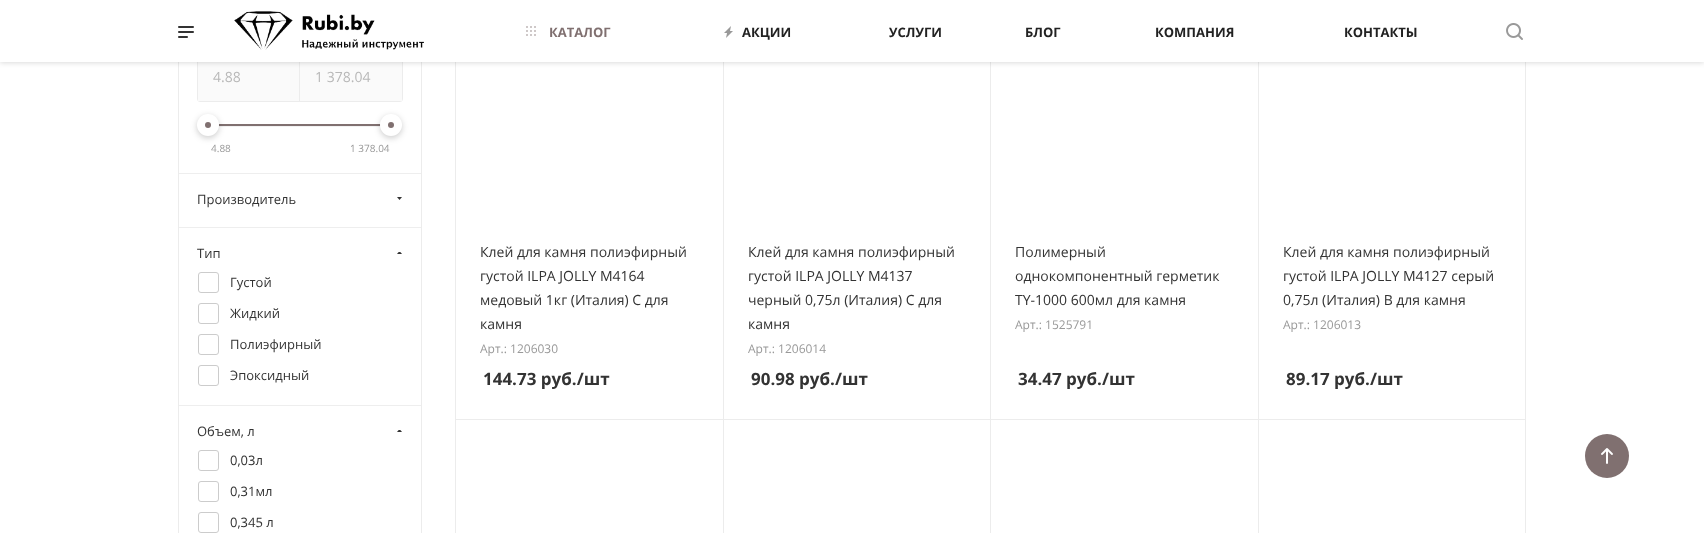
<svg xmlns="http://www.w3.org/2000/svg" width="1704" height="533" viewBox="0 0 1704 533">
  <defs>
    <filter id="blur1" x="-50%" y="-200%" width="200%" height="500%"><feGaussianBlur stdDeviation="2.5"/></filter>
    <filter id="blur2" x="-50%" y="-200%" width="200%" height="500%"><feGaussianBlur stdDeviation="3"/></filter>
    <clipPath id="clip1"><rect x="397" y="252" width="5" height="3"/></clipPath>
    <clipPath id="clip2"><rect x="397" y="430" width="5" height="3"/></clipPath>
  </defs>
  <rect width="100%" height="100%" fill="#ffffff"/>
  <rect x="178.5" y="7.5" width="243" height="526" fill="none" stroke="#ececec"/>
  <rect x="197.5" y="52.5" width="205" height="49" rx="2.5" fill="none" stroke="#ececec"/>
  <rect x="198" y="62" width="101" height="39" fill="#fafafa"/>
  <rect x="299" y="62" width="1" height="39" fill="#ececec"/>
  <rect x="300" y="62" width="102" height="39" fill="#fafafa"/>
  <rect x="455.5" y="-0.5" width="268" height="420" fill="none" stroke="#ececec"/>
  <rect x="723.5" y="-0.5" width="267" height="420" fill="none" stroke="#ececec"/>
  <rect x="990.5" y="-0.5" width="268" height="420" fill="none" stroke="#ececec"/>
  <rect x="1258.5" y="-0.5" width="267" height="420" fill="none" stroke="#ececec"/>
  <rect x="0" y="1" width="1704" height="62" fill="#000000" fill-opacity="0.14" filter="url(#blur1)"/>
  <rect x="0" y="0" width="1704" height="62" fill="#ffffff"/>
  <image x="178" y="26" width="16" height="12" href="img1.png"/>
  <image x="234" y="11" width="190" height="39" href="img2.png"/>
  <image x="526" y="26" width="10" height="10" href="img3.png"/>
  <text x="549" y="37" font-family="Open Sans" font-size="13" font-weight="bold" fill="#807070">КАТАЛОГ</text>
  <image x="724" y="26" width="9" height="12" href="img4.png"/>
  <text x="742" y="37" font-family="Open Sans" font-size="13" font-weight="bold" fill="#222222">АКЦИИ</text>
  <text x="889" y="37" font-family="Open Sans" font-size="13" font-weight="bold" fill="#222222">УСЛУГИ</text>
  <text x="1025" y="37" font-family="Open Sans" font-size="13" font-weight="bold" fill="#222222">БЛОГ</text>
  <text x="1155" y="37" font-family="Open Sans" font-size="13" font-weight="bold" fill="#222222">КОМПАНИЯ</text>
  <text x="1344" y="37" font-family="Open Sans" font-size="13" font-weight="bold" fill="#222222">КОНТАКТЫ</text>
  <image x="1506" y="23" width="17" height="17" href="img5.png"/>
  <rect x="179" y="173" width="242" height="1" fill="#eeeeee"/>
  <text x="213" y="82" font-family="Open Sans" font-size="14" fill="#b8b8b8">4.88</text>
  <text x="315" y="82" font-family="Open Sans" font-size="14" fill="#b8b8b8">1 378.04</text>
  <rect x="218" y="124" width="163" height="2" fill="#807070"/>
  <rect x="218" y="126" width="163" height="1" fill="#f2f2f2"/>
  <rect x="197" y="116" width="22" height="22" rx="11" fill="#000000" fill-opacity="0.2" filter="url(#blur2)"/>
  <circle cx="208" cy="125" r="11" fill="#ffffff"/>
  <circle cx="208" cy="125" r="3" fill="#807070"/>
  <rect x="380" y="116" width="22" height="22" rx="11" fill="#000000" fill-opacity="0.2" filter="url(#blur2)"/>
  <circle cx="391" cy="125" r="11" fill="#ffffff"/>
  <circle cx="391" cy="125" r="3" fill="#807070"/>
  <text x="211" y="152" font-family="Open Sans" font-size="10" fill="#999999">4.88</text>
  <text x="350" y="152" font-family="Open Sans" font-size="10" fill="#999999">1 378.04</text>
  <rect x="179" y="227" width="242" height="1" fill="#eeeeee"/>
  <text x="197" y="204" font-family="Open Sans" font-size="13" fill="#333333">Производитель</text>
  <path d="M397 197H402L399.5 200Z" fill="#333333" fill-rule="evenodd"/>
  <rect x="179" y="405" width="242" height="1" fill="#eeeeee"/>
  <text x="197" y="258" font-family="Open Sans" font-size="13" fill="#333333">Тип</text>
  <g clip-path="url(#clip1)">
    <path d="M402 254H397L399.5 251Z" fill="#333333" fill-rule="evenodd"/>
  </g>
  <rect x="198.5" y="272.5" width="20" height="20" rx="2.5" fill="none" stroke="#cccccc"/>
  <text x="230" y="287" font-family="Open Sans" font-size="13" fill="#333333">Густой</text>
  <rect x="198.5" y="303.5" width="20" height="20" rx="2.5" fill="none" stroke="#cccccc"/>
  <text x="230" y="318" font-family="Open Sans" font-size="13" fill="#333333">Жидкий</text>
  <rect x="198.5" y="334.5" width="20" height="20" rx="2.5" fill="none" stroke="#cccccc"/>
  <text x="230" y="349" font-family="Open Sans" font-size="13" fill="#333333">Полиэфирный</text>
  <rect x="198.5" y="365.5" width="20" height="20" rx="2.5" fill="none" stroke="#cccccc"/>
  <text x="230" y="380" font-family="Open Sans" font-size="13" fill="#333333">Эпоксидный</text>
  <text x="197" y="436" font-family="Open Sans" font-size="13" fill="#333333">Объем, л</text>
  <g clip-path="url(#clip2)">
    <path d="M402 432H397L399.5 429Z" fill="#333333" fill-rule="evenodd"/>
  </g>
  <rect x="198.5" y="450.5" width="20" height="20" rx="2.5" fill="none" stroke="#cccccc"/>
  <text x="230" y="465" font-family="Open Sans" font-size="13" fill="#333333">0,03л</text>
  <rect x="198.5" y="481.5" width="20" height="20" rx="2.5" fill="none" stroke="#cccccc"/>
  <text x="230" y="496" font-family="Open Sans" font-size="13" fill="#333333">0,31мл</text>
  <rect x="198.5" y="512.5" width="20" height="20" rx="2.5" fill="none" stroke="#cccccc"/>
  <text x="230" y="527" font-family="Open Sans" font-size="13" fill="#333333">0,345 л</text>
  <text x="480" y="257" font-family="Open Sans" font-size="14" fill="#333333">Клей для камня полиэфирный</text>
  <text x="480" y="281" font-family="Open Sans" font-size="14" fill="#333333">густой ILPA JOLLY M4164</text>
  <text x="480" y="305" font-family="Open Sans" font-size="14" fill="#333333">медовый 1кг (Италия) С для</text>
  <text x="480" y="329" font-family="Open Sans" font-size="14" fill="#333333">камня</text>
  <text x="480" y="353" font-family="Open Sans" font-size="12" fill="#999999">Арт.: 1206030</text>
  <text x="483" y="385" font-family="Open Sans" font-size="17" font-weight="bold" fill="#333333">144.73 руб./шт</text>
  <text x="748" y="257" font-family="Open Sans" font-size="14" fill="#333333">Клей для камня полиэфирный</text>
  <text x="748" y="281" font-family="Open Sans" font-size="14" fill="#333333">густой ILPA JOLLY M4137</text>
  <text x="748" y="305" font-family="Open Sans" font-size="14" fill="#333333">черный 0,75л (Италия) С для</text>
  <text x="748" y="329" font-family="Open Sans" font-size="14" fill="#333333">камня</text>
  <text x="748" y="353" font-family="Open Sans" font-size="12" fill="#999999">Арт.: 1206014</text>
  <text x="751" y="385" font-family="Open Sans" font-size="17" font-weight="bold" fill="#333333">90.98 руб./шт</text>
  <text x="1015" y="257" font-family="Open Sans" font-size="14" fill="#333333">Полимерный</text>
  <text x="1015" y="281" font-family="Open Sans" font-size="14" fill="#333333">однокомпонентный герметик</text>
  <text x="1015" y="305" font-family="Open Sans" font-size="14" fill="#333333">TY-1000 600мл для камня</text>
  <text x="1015" y="329" font-family="Open Sans" font-size="12" fill="#999999">Арт.: 1525791</text>
  <text x="1018" y="385" font-family="Open Sans" font-size="17" font-weight="bold" fill="#333333">34.47 руб./шт</text>
  <text x="1283" y="257" font-family="Open Sans" font-size="14" fill="#333333">Клей для камня полиэфирный</text>
  <text x="1283" y="281" font-family="Open Sans" font-size="14" fill="#333333">густой ILPA JOLLY M4127 серый</text>
  <text x="1283" y="305" font-family="Open Sans" font-size="14" fill="#333333">0,75л (Италия) B для камня</text>
  <text x="1283" y="329" font-family="Open Sans" font-size="12" fill="#999999">Арт.: 1206013</text>
  <text x="1286" y="385" font-family="Open Sans" font-size="17" font-weight="bold" fill="#333333">89.17 руб./шт</text>
  <rect x="455.5" y="419.5" width="268" height="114" fill="none" stroke="#ececec"/>
  <rect x="723.5" y="419.5" width="267" height="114" fill="none" stroke="#ececec"/>
  <rect x="990.5" y="419.5" width="268" height="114" fill="none" stroke="#ececec"/>
  <rect x="1258.5" y="419.5" width="267" height="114" fill="none" stroke="#ececec"/>
  <circle cx="1607" cy="456" r="22" fill="#807070"/>
  <image x="1601" y="448" width="12" height="16" href="img6.png"/>
</svg>
